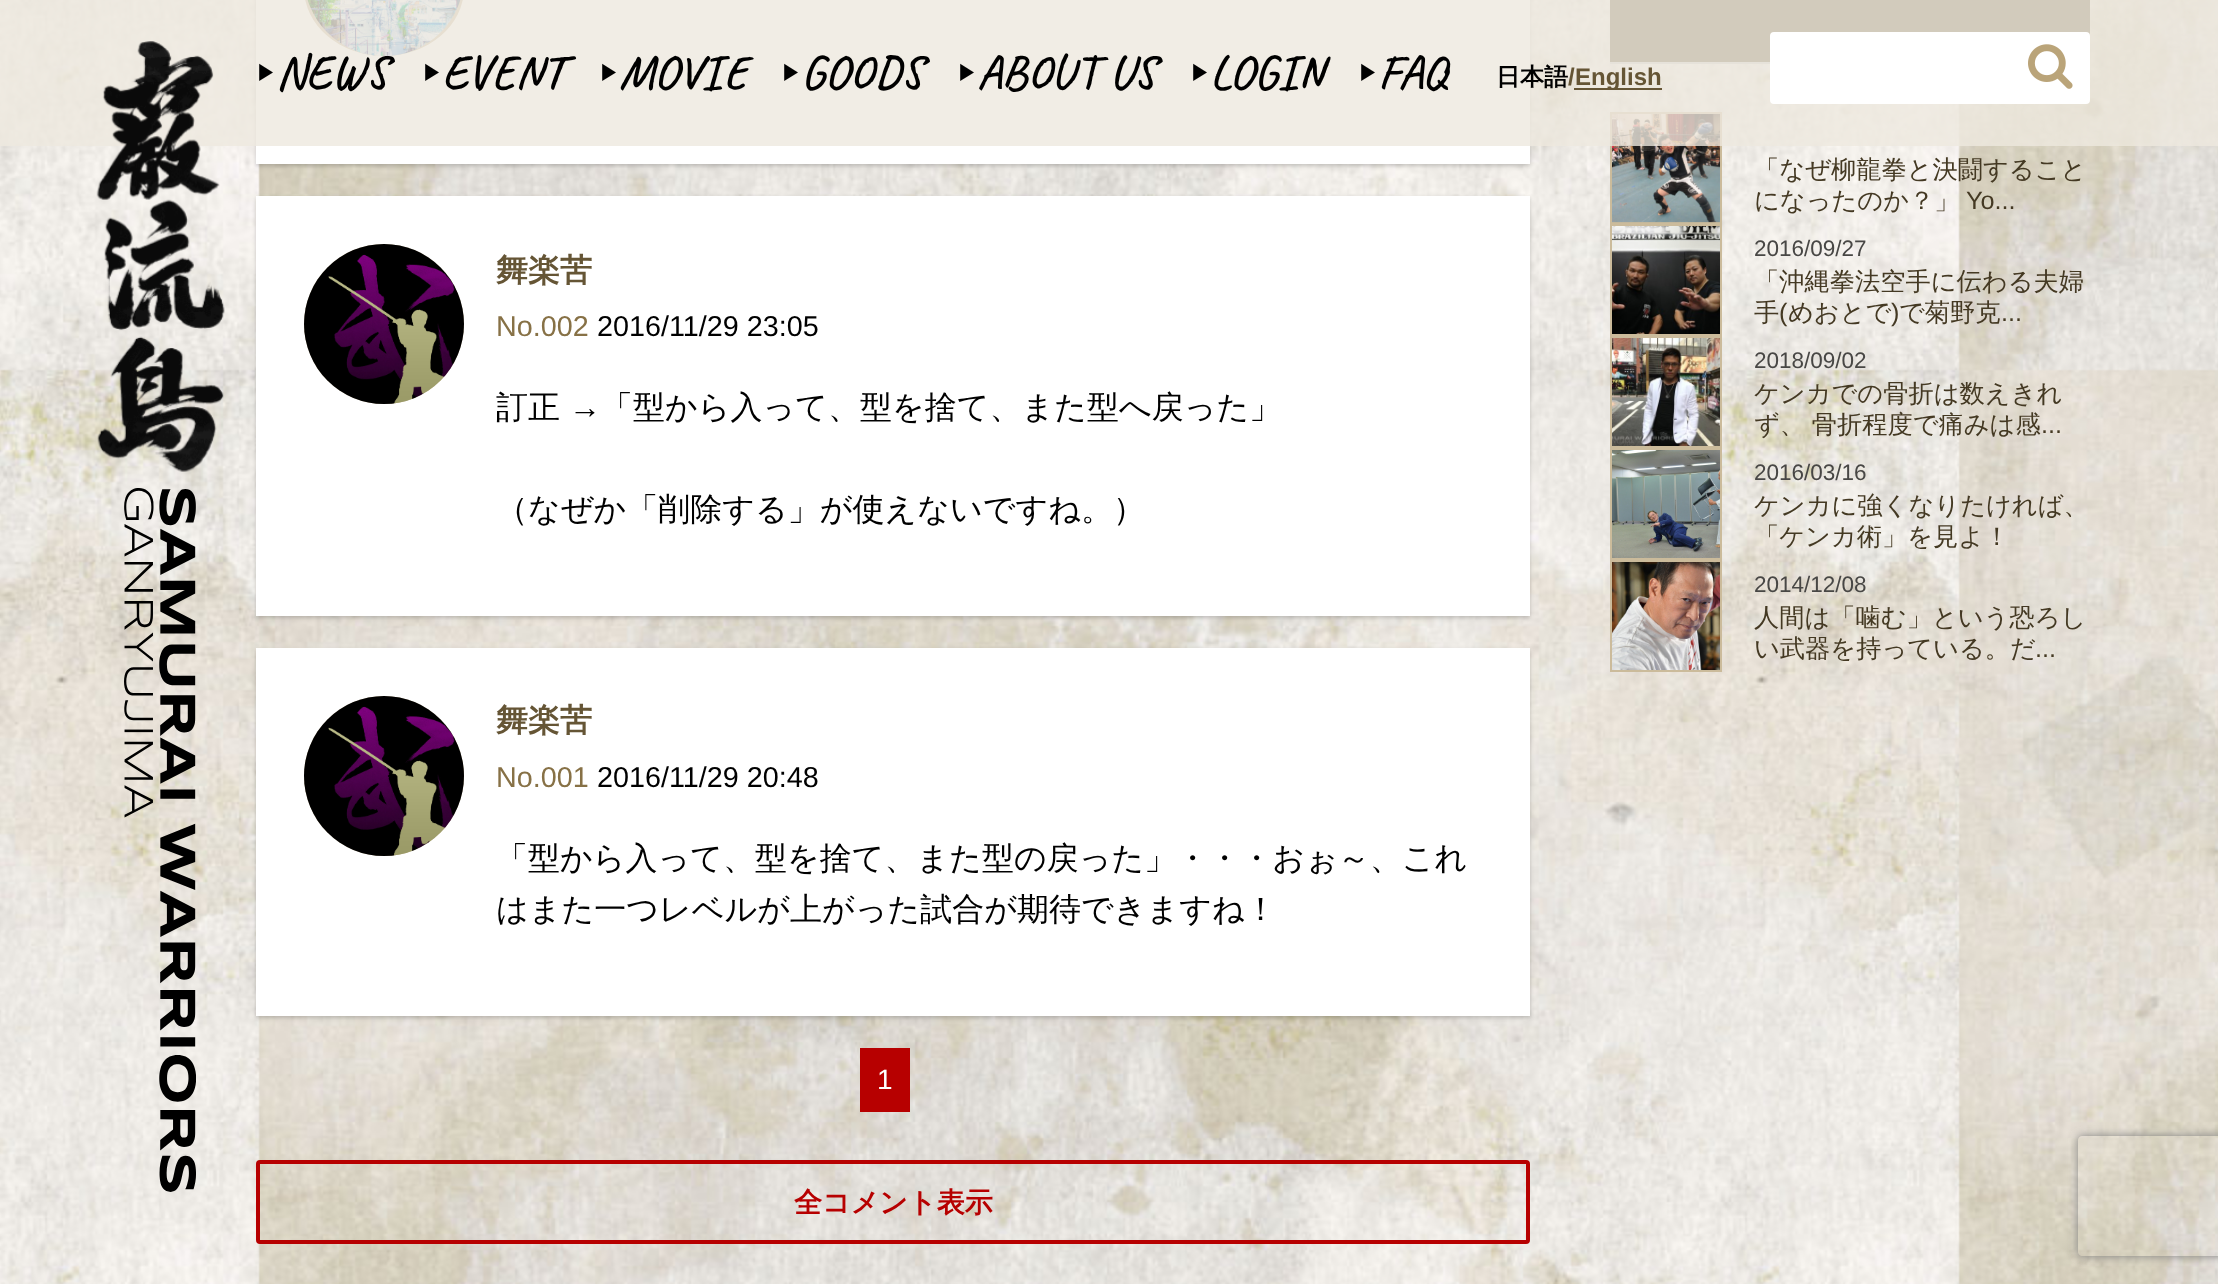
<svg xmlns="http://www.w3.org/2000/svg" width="2218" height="1284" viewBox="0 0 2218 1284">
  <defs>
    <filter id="blur1" x="-50%" y="-200%" width="200%" height="500%"><feGaussianBlur stdDeviation="2"/></filter>
    <clipPath id="clip1"><path d="M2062 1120H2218V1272H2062ZM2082 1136H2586C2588 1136 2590 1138 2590 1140V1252C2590 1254 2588 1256 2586 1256H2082C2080 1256 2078 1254 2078 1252V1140C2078 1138 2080 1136 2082 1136Z" clip-rule="evenodd"/></clipPath>
    <filter id="blur2" x="-50%" y="-200%" width="200%" height="500%"><feGaussianBlur stdDeviation="5"/></filter>
  </defs>
  <rect width="100%" height="100%" fill="#ffffff"/>
  <image x="0" y="0" width="2218" height="1284" href="img1.png"/>
  <rect x="256" y="-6" width="1274" height="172" fill="#000000" fill-opacity="0.2" filter="url(#blur1)"/>
  <rect x="256" y="0" width="1274" height="164" fill="#ffffff"/>
  <rect x="304" y="-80" width="160" height="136" rx="80" fill="#cbbb9b"/>
  <image x="307" y="0" width="154" height="56" href="img5.png"/>
  <rect x="1610" y="0" width="480" height="62" fill="#655535"/>
  <rect x="1610" y="62" width="160" height="2" fill="#c7c6c5"/>
  <rect x="1611" y="113" width="110" height="110" fill="none" stroke="#cbbb9b" stroke-width="2"/>
  <image x="1612" y="114" width="108" height="109" href="img8.png"/>
  <rect x="0" y="0" width="2218" height="146" fill="#eee9de" fill-opacity="0.8"/>
  <image x="96" y="41" width="129" height="431" href="img2.png"/>
  <image x="124" y="488" width="72" height="704" href="img3.png"/>
  <text x="256" y="80" font-family="WenQuanYi Zen Hei" font-size="20" font-weight="bold" fill="#000000">▶︎</text>
  <text x="276" y="88" font-family="Caveat" font-size="48" font-weight="600" fill="#000000">NEWS</text>
  <text x="422" y="80" font-family="WenQuanYi Zen Hei" font-size="20" font-weight="bold" fill="#000000">▶︎</text>
  <text x="442" y="88" font-family="Caveat" font-size="48" font-weight="600" fill="#000000">EVENT</text>
  <text x="599" y="80" font-family="WenQuanYi Zen Hei" font-size="20" font-weight="bold" fill="#000000">▶︎</text>
  <text x="619" y="88" font-family="Caveat" font-size="48" font-weight="600" fill="#000000">MOVIE</text>
  <text x="781" y="80" font-family="WenQuanYi Zen Hei" font-size="20" font-weight="bold" fill="#000000">▶︎</text>
  <text x="801" y="88" font-family="Caveat" font-size="48" font-weight="600" fill="#000000">GOODS</text>
  <text x="957" y="80" font-family="WenQuanYi Zen Hei" font-size="20" font-weight="bold" fill="#000000">▶︎</text>
  <text x="977" y="88" font-family="Caveat" font-size="48" font-weight="600" fill="#000000">ABOUT US</text>
  <text x="1190" y="80" font-family="WenQuanYi Zen Hei" font-size="20" font-weight="bold" fill="#000000">▶︎</text>
  <text x="1210" y="88" font-family="Caveat" font-size="48" font-weight="600" fill="#000000">LOGIN</text>
  <text x="1358" y="80" font-family="WenQuanYi Zen Hei" font-size="20" font-weight="bold" fill="#000000">▶︎</text>
  <text x="1378" y="88" font-family="Caveat" font-size="48" font-weight="600" fill="#000000">FAQ</text>
  <text x="1496" y="85" font-family="WenQuanYi Zen Hei" font-size="24" font-weight="bold" fill="#000000">日本語</text>
  <text x="1568" y="85" font-family="Liberation Sans" font-size="24" font-weight="bold" fill="#655535">/</text>
  <rect x="1574" y="88" width="88" height="2" fill="#655535"/>
  <text x="1575" y="85" font-family="Liberation Sans" font-size="24" font-weight="bold" fill="#655535">English</text>
  <rect x="1771" y="33" width="318" height="70" rx="3" fill="#ffffff" stroke="#ffffff" stroke-width="2"/>
  <image x="2028" y="44" width="45" height="45" href="img4.png"/>
  <rect x="256" y="198" width="1274" height="420" fill="#000000" fill-opacity="0.2" filter="url(#blur1)"/>
  <rect x="256" y="196" width="1274" height="420" fill="#ffffff"/>
  <circle cx="384" cy="324" r="80" fill="#cbbb9b"/>
  <image x="304" y="244" width="160" height="160" href="img6.png"/>
  <text x="496" y="281" font-family="WenQuanYi Zen Hei" font-size="32" font-weight="bold" fill="#655535">舞楽苦</text>
  <text x="496" y="336" font-family="Liberation Sans" font-size="28.75" fill="#877146">No.002</text>
  <text x="597" y="336" font-family="Liberation Sans" font-size="28.75" fill="#000000">2016/11/29 23:05</text>
  <text x="496" y="418" font-family="WenQuanYi Zen Hei" font-size="32" font-weight="500" fill="#000000">訂正</text>
  <text x="569" y="418" font-family="Liberation Sans" font-size="32" fill="#000000">→</text>
  <text x="601" y="418" font-family="WenQuanYi Zen Hei" font-size="32" font-weight="500" fill="#000000">「型から入って、型を捨て、また型へ戻った」</text>
  <text x="496" y="520" font-family="WenQuanYi Zen Hei" font-size="32" font-weight="500" fill="#000000">（なぜか「削除する」が使えないですね。）</text>
  <rect x="256" y="650" width="1274" height="368" fill="#000000" fill-opacity="0.2" filter="url(#blur1)"/>
  <rect x="256" y="648" width="1274" height="368" fill="#ffffff"/>
  <circle cx="384" cy="776" r="80" fill="#cbbb9b"/>
  <image x="304" y="696" width="160" height="160" href="img7.png"/>
  <text x="496" y="731" font-family="WenQuanYi Zen Hei" font-size="32" font-weight="bold" fill="#655535">舞楽苦</text>
  <text x="496" y="787" font-family="Liberation Sans" font-size="28.75" fill="#877146">No.001</text>
  <text x="597" y="787" font-family="Liberation Sans" font-size="28.75" fill="#000000">2016/11/29 20:48</text>
  <text x="496" y="869" font-family="WenQuanYi Zen Hei" font-size="32" font-weight="500" fill="#000000">「型から入って、型を捨て、また型の戻った」・・・おぉ～、これ</text>
  <text x="496" y="920" font-family="WenQuanYi Zen Hei" font-size="32" font-weight="500" fill="#000000">はまた一つレベルが上がった試合が期待できますね！</text>
  <rect x="860" y="1048" width="50" height="64" fill="#b70000"/>
  <text x="877" y="1089" font-family="Liberation Sans" font-size="28" fill="#ffffff">1</text>
  <rect x="258" y="1162" width="1270" height="80" rx="2" fill="none" stroke="#b70000" stroke-width="4"/>
  <text x="794" y="1212" font-family="WenQuanYi Zen Hei" font-size="28" font-weight="bold" fill="#b70000">全コメント表示</text>
  <text x="1754" y="178" font-family="WenQuanYi Zen Hei" font-size="25.25" font-weight="500" fill="#443923">「なぜ柳龍拳と決闘すること</text>
  <text x="1754" y="209" font-family="WenQuanYi Zen Hei" font-size="25.25" font-weight="500" fill="#443923">になったのか？」</text>
  <text x="1966" y="209" font-family="Liberation Sans" font-size="25.25" fill="#443923">Yo...</text>
  <rect x="1611" y="225" width="110" height="110" fill="none" stroke="#cbbb9b" stroke-width="2"/>
  <image x="1612" y="226" width="108" height="108" href="img9.png"/>
  <text x="1754" y="256" font-family="Liberation Sans" font-size="22.5" fill="#484745">2016/09/27</text>
  <text x="1754" y="290" font-family="WenQuanYi Zen Hei" font-size="25.25" font-weight="500" fill="#443923">「沖縄拳法空手に伝わる夫婦</text>
  <text x="1754" y="321" font-family="WenQuanYi Zen Hei" font-size="25.25" font-weight="500" fill="#443923">手</text>
  <text x="1779" y="321" font-family="Liberation Sans" font-size="25.25" fill="#443923">(</text>
  <text x="1788" y="321" font-family="WenQuanYi Zen Hei" font-size="25.25" font-weight="500" fill="#443923">めおとで</text>
  <text x="1891" y="321" font-family="Liberation Sans" font-size="25.25" fill="#443923">)</text>
  <text x="1899" y="321" font-family="WenQuanYi Zen Hei" font-size="25.25" font-weight="500" fill="#443923">で菊野克</text>
  <text x="2001" y="321" font-family="Liberation Sans" font-size="25.25" fill="#443923">...</text>
  <rect x="1611" y="337" width="110" height="110" fill="none" stroke="#cbbb9b" stroke-width="2"/>
  <image x="1612" y="338" width="108" height="108" href="img10.png"/>
  <text x="1754" y="368" font-family="Liberation Sans" font-size="22.5" fill="#484745">2018/09/02</text>
  <text x="1754" y="402" font-family="WenQuanYi Zen Hei" font-size="25.25" font-weight="500" fill="#443923">ケンカでの骨折は数えきれ</text>
  <text x="1754" y="433" word-spacing="-1" font-family="WenQuanYi Zen Hei" font-size="25.25" font-weight="500" fill="#443923">ず、 骨折程度で痛みは感</text>
  <text x="2041" y="433" font-family="Liberation Sans" font-size="25.25" fill="#443923">...</text>
  <rect x="1611" y="449" width="110" height="110" fill="none" stroke="#cbbb9b" stroke-width="2"/>
  <image x="1612" y="450" width="108" height="108" href="img11.png"/>
  <text x="1754" y="480" font-family="Liberation Sans" font-size="22.5" fill="#484745">2016/03/16</text>
  <text x="1754" y="514" font-family="WenQuanYi Zen Hei" font-size="25.25" font-weight="500" fill="#443923">ケンカに強くなりたければ、</text>
  <text x="1754" y="545" font-family="WenQuanYi Zen Hei" font-size="25.25" font-weight="500" fill="#443923">「ケンカ術」を見よ！</text>
  <rect x="1611" y="561" width="110" height="110" fill="none" stroke="#cbbb9b" stroke-width="2"/>
  <image x="1612" y="562" width="108" height="108" href="img12.png"/>
  <text x="1754" y="592" font-family="Liberation Sans" font-size="22.5" fill="#484745">2014/12/08</text>
  <text x="1754" y="626" font-family="WenQuanYi Zen Hei" font-size="25.25" font-weight="500" fill="#443923">人間は「噛む」という恐ろし</text>
  <text x="1754" y="657" font-family="WenQuanYi Zen Hei" font-size="25.25" font-weight="500" fill="#443923">い武器を持っている。だ</text>
  <text x="2035" y="657" font-family="Liberation Sans" font-size="25.25" fill="#443923">...</text>
  <g clip-path="url(#clip1)">
    <rect x="2078" y="1136" width="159" height="120" rx="4" fill="#808080" filter="url(#blur2)"/>
  </g>
</svg>
